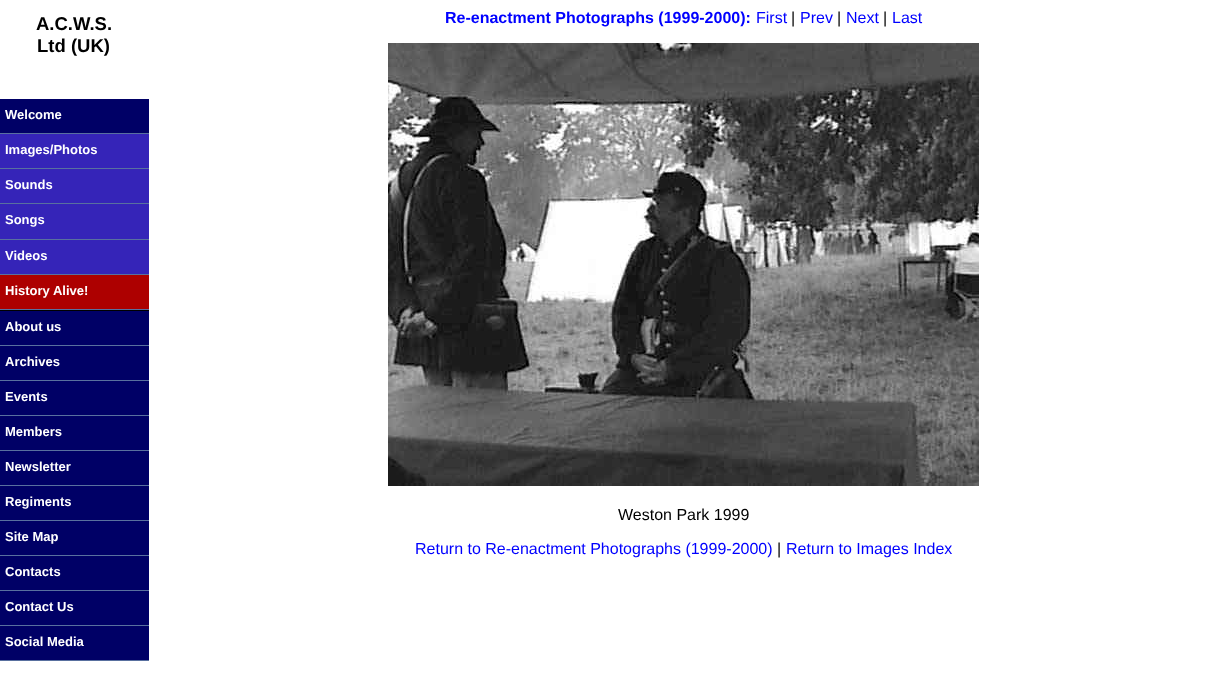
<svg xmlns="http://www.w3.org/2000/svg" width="1219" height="677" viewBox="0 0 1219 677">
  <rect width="100%" height="100%" fill="#ffffff"/>
  <text x="36" y="30" font-family="Liberation Sans" font-size="18.5" font-weight="bold" fill="#000000">A.C.W.S.</text>
  <text x="37" y="52" font-family="Liberation Sans" font-size="18.5" font-weight="bold" fill="#000000">Ltd (UK)</text>
  <rect x="0" y="133" width="149" height="1" fill="#59709f"/>
  <rect x="0" y="99" width="149" height="34" fill="#000066"/>
  <text x="5" y="119" font-family="Liberation Sans" font-size="13" font-weight="bold" fill="#ffffff">Welcome</text>
  <rect x="0" y="134" width="149" height="140" fill="#3524b8"/>
  <rect x="0" y="168" width="149" height="1" fill="#59709f"/>
  <text x="5" y="154" font-family="Liberation Sans" font-size="13" font-weight="bold" fill="#ffffff">Images/Photos</text>
  <rect x="0" y="203" width="149" height="1" fill="#59709f"/>
  <text x="5" y="189" font-family="Liberation Sans" font-size="13" font-weight="bold" fill="#ffffff">Sounds</text>
  <rect x="0" y="239" width="149" height="1" fill="#59709f"/>
  <text x="5" y="224" font-family="Liberation Sans" font-size="13" font-weight="bold" fill="#ffffff">Songs</text>
  <rect x="0" y="274" width="149" height="1" fill="#59709f"/>
  <text x="5" y="260" font-family="Liberation Sans" font-size="13" font-weight="bold" fill="#ffffff">Videos</text>
  <rect x="0" y="275" width="149" height="34" fill="#ad0000"/>
  <rect x="0" y="310" width="149" height="1" fill="#000000"/>
  <rect x="0" y="309" width="149" height="1" fill="#59709f"/>
  <text x="5" y="295" font-family="Liberation Sans" font-size="13" font-weight="bold" fill="#ffffff">History Alive!</text>
  <rect x="0" y="345" width="149" height="316" fill="#59709f"/>
  <rect x="0" y="311" width="149" height="34" fill="#000066"/>
  <text x="5" y="331" font-family="Liberation Sans" font-size="13" font-weight="bold" fill="#ffffff">About us</text>
  <rect x="0" y="346" width="149" height="34" fill="#000066"/>
  <text x="5" y="366" font-family="Liberation Sans" font-size="13" font-weight="bold" fill="#ffffff">Archives</text>
  <rect x="0" y="381" width="149" height="34" fill="#000066"/>
  <text x="5" y="401" font-family="Liberation Sans" font-size="13" font-weight="bold" fill="#ffffff">Events</text>
  <rect x="0" y="416" width="149" height="34" fill="#000066"/>
  <text x="5" y="436" font-family="Liberation Sans" font-size="13" font-weight="bold" fill="#ffffff">Members</text>
  <rect x="0" y="451" width="149" height="34" fill="#000066"/>
  <text x="5" y="471" font-family="Liberation Sans" font-size="13" font-weight="bold" fill="#ffffff">Newsletter</text>
  <rect x="0" y="486" width="149" height="34" fill="#000066"/>
  <text x="5" y="506" font-family="Liberation Sans" font-size="13" font-weight="bold" fill="#ffffff">Regiments</text>
  <rect x="0" y="521" width="149" height="34" fill="#000066"/>
  <text x="5" y="541" font-family="Liberation Sans" font-size="13" font-weight="bold" fill="#ffffff">Site Map</text>
  <rect x="0" y="556" width="149" height="34" fill="#000066"/>
  <text x="5" y="576" font-family="Liberation Sans" font-size="13" font-weight="bold" fill="#ffffff">Contacts</text>
  <rect x="0" y="591" width="149" height="34" fill="#000066"/>
  <text x="5" y="611" font-family="Liberation Sans" font-size="13" font-weight="bold" fill="#ffffff">Contact Us</text>
  <rect x="0" y="626" width="149" height="34" fill="#000066"/>
  <text x="5" y="646" font-family="Liberation Sans" font-size="13" font-weight="bold" fill="#ffffff">Social Media</text>
  <text x="445" y="23" font-family="Liberation Sans" font-size="16" font-weight="bold" fill="#0000ff">Re-enactment Photographs (1999-2000):</text>
  <text x="756" y="23" font-family="Liberation Sans" font-size="16" fill="#0000ff">First</text>
  <text x="791" y="23" font-family="Liberation Sans" font-size="16" fill="#000000">|</text>
  <text x="800" y="23" font-family="Liberation Sans" font-size="16" fill="#0000ff">Prev</text>
  <text x="837" y="23" font-family="Liberation Sans" font-size="16" fill="#000000">|</text>
  <text x="846" y="23" font-family="Liberation Sans" font-size="16" fill="#0000ff">Next</text>
  <text x="883" y="23" font-family="Liberation Sans" font-size="16" fill="#000000">|</text>
  <text x="892" y="23" font-family="Liberation Sans" font-size="16" fill="#0000ff">Last</text>
  <image x="388" y="43" width="591" height="443" href="img1.png"/>
  <text x="618" y="520" font-family="Liberation Sans" font-size="16" fill="#000000">Weston Park 1999</text>
  <text x="415" y="554" font-family="Liberation Sans" font-size="16" fill="#0000ff">Return to Re-enactment Photographs (1999-2000)</text>
  <text x="777" y="554" font-family="Liberation Sans" font-size="16" fill="#000000">|</text>
  <text x="786" y="554" font-family="Liberation Sans" font-size="16" fill="#0000ff">Return to Images Index</text>
</svg>
